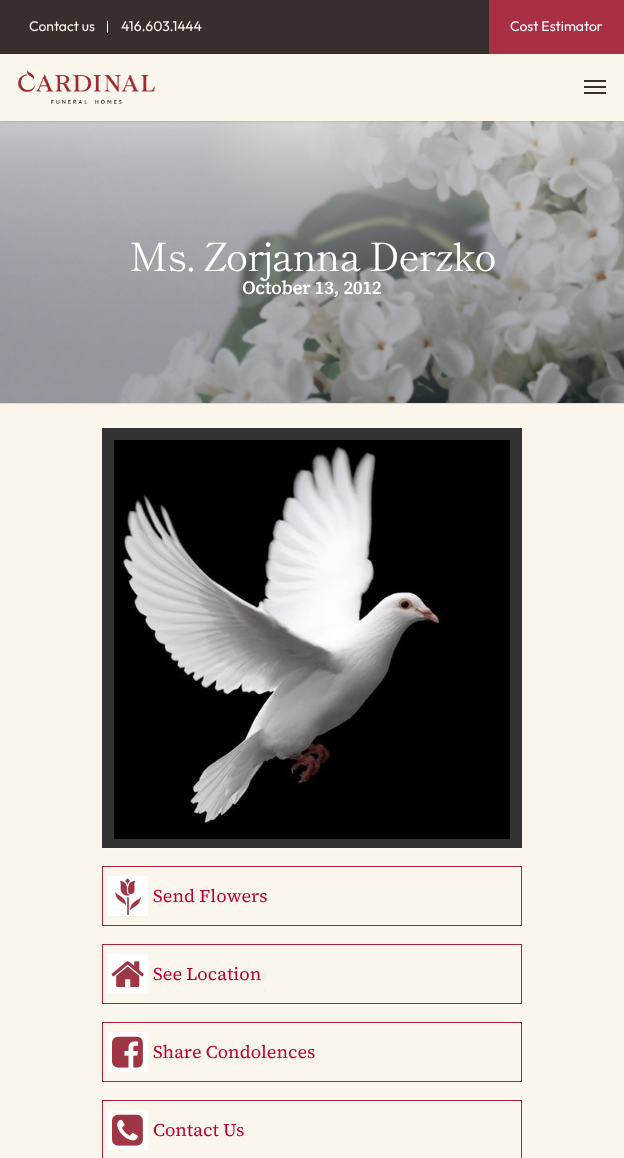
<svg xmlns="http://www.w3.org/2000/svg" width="624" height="1158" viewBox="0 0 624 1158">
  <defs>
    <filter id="blur1" x="-50%" y="-200%" width="200%" height="500%"><feGaussianBlur stdDeviation="1.5"/></filter>
  </defs>
  <rect width="100%" height="100%" fill="#fbf6ec"/>
  <image x="0" y="121" width="624" height="282" href="img2.png"/>
  <rect x="0" y="53" width="624" height="68" fill="#000000" fill-opacity="0.22" filter="url(#blur1)"/>
  <rect x="0" y="0" width="489" height="53" fill="#382f2d"/>
  <rect x="0" y="53" width="489" height="1" fill="#322a29"/>
  <text x="29" y="31" font-family="Outfit" font-size="14" fill="#fbf6ec">Contact us</text>
  <rect x="107" y="21" width="1" height="12" fill="#ffffff"/>
  <text x="121" y="31" font-family="Outfit" font-size="14" fill="#fbf6ec">416.603.1444</text>
  <rect x="489" y="0" width="135" height="54" fill="#a92f44"/>
  <text x="510" y="31" font-family="Outfit" font-size="14" fill="#ffffff">Cost Estimator</text>
  <rect x="0" y="54" width="624" height="67" fill="#fbf6ec"/>
  <image x="18" y="70" width="137" height="34" href="img1.png"/>
  <rect x="584" y="80" width="22" height="2" fill="#382f2d"/>
  <rect x="584" y="92" width="22" height="2" fill="#382f2d"/>
  <rect x="584" y="86" width="22" height="2" fill="#382f2d"/>
  <rect x="0" y="403" width="624" height="1" fill="#dddddd"/>
  <text x="129" y="271" font-family="Shippori Mincho" font-size="39" letter-spacing="-1" fill="#ffffff">Ms. Zorjanna Derzko</text>
  <text x="242" y="294" font-family="'Source Serif 4'" font-size="18" font-weight="bold" fill="#ffffff">October 13, 2012</text>
  <image x="102" y="428" width="420" height="420" href="img3.png"/>
  <rect x="108" y="434" width="408" height="411" fill="none" stroke="#ffffff" stroke-opacity="0.2" stroke-width="12"/>
  <image x="108" y="876" width="40" height="40" href="img4.png"/>
  <rect x="102.5" y="866.5" width="419" height="59" fill="none" stroke="#a9233e"/>
  <text x="153" y="902" font-family="'Source Serif 4'" font-size="18" fill="#bd0031">Send Flowers</text>
  <image x="108" y="954" width="40" height="40" href="img5.png"/>
  <rect x="102.5" y="944.5" width="419" height="59" fill="none" stroke="#a9233e"/>
  <text x="153" y="980" font-family="'Source Serif 4'" font-size="18" fill="#bd0031">See Location</text>
  <image x="108" y="1032" width="40" height="40" href="img6.png"/>
  <rect x="102.5" y="1022.5" width="419" height="59" fill="none" stroke="#a9233e"/>
  <text x="153" y="1058" font-family="'Source Serif 4'" font-size="18" fill="#bd0031">Share Condolences</text>
  <image x="108" y="1110" width="40" height="40" href="img7.png"/>
  <rect x="102.5" y="1100.5" width="419" height="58" fill="none" stroke="#a9233e"/>
  <text x="153" y="1136" font-family="'Source Serif 4'" font-size="18" fill="#bd0031">Contact Us</text>
</svg>
